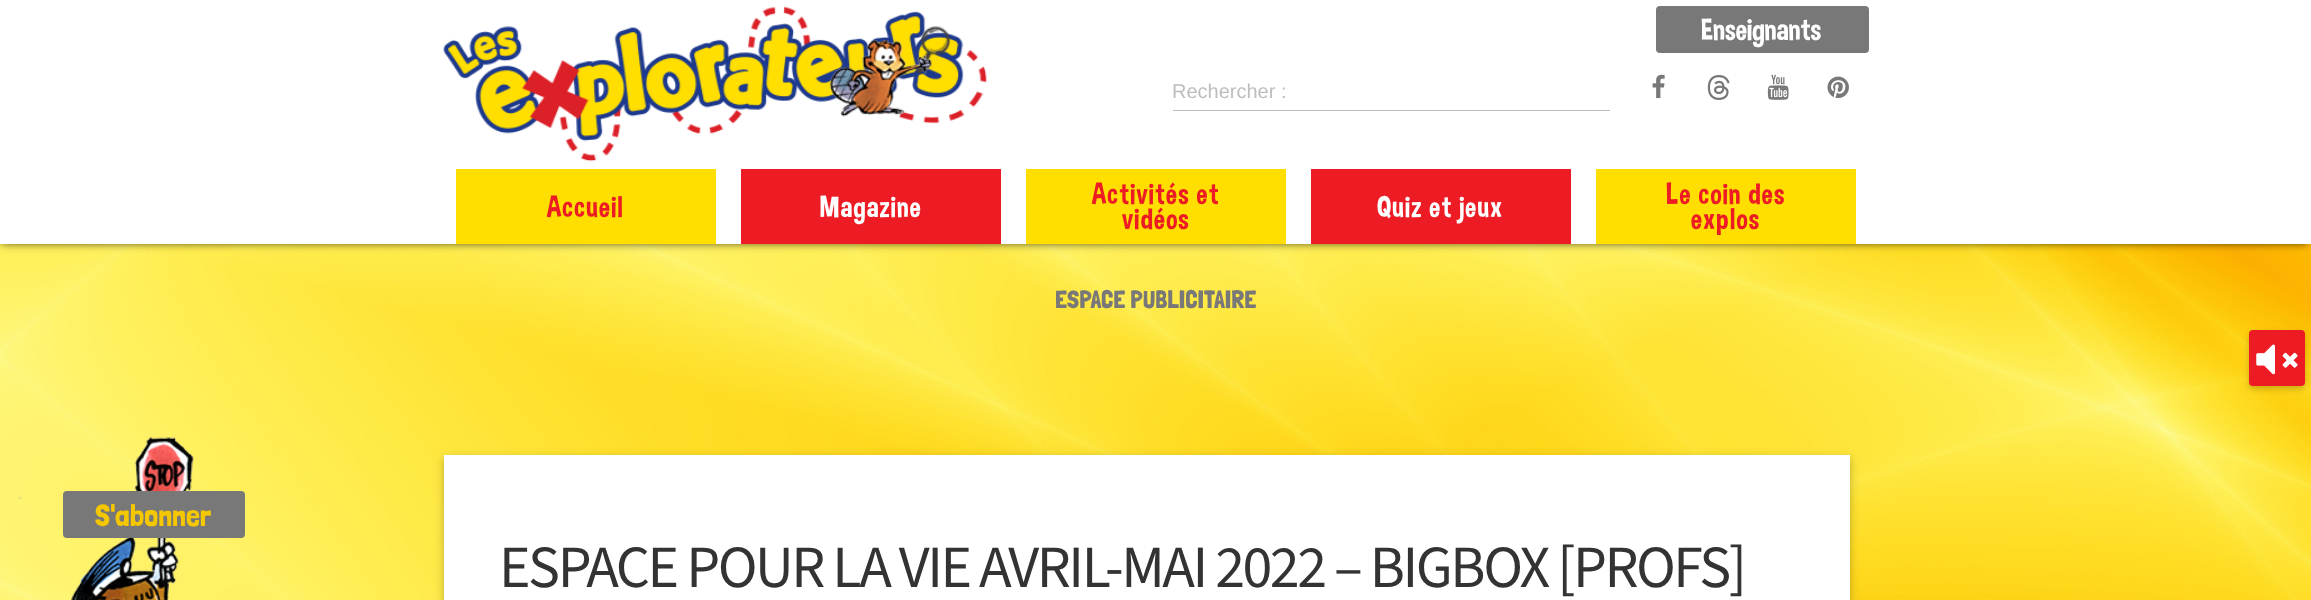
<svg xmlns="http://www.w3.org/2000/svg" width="2311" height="600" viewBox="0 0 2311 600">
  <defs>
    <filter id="blur1" x="-50%" y="-200%" width="200%" height="500%"><feGaussianBlur stdDeviation="5"/></filter>
    <filter id="blur2" x="-50%" y="-200%" width="200%" height="500%"><feGaussianBlur stdDeviation="6"/></filter>
    <filter id="blur3" x="-50%" y="-200%" width="200%" height="500%"><feGaussianBlur stdDeviation="3"/></filter>
  </defs>
  <rect width="100%" height="100%" fill="#ffffff"/>
  <image x="0" y="244" width="2311" height="356" href="img1.png"/>
  <rect x="1" y="4" width="2307" height="239" fill="#000000" fill-opacity="0.75" filter="url(#blur1)"/>
  <rect x="0" y="0" width="2311" height="244" fill="#ffffff"/>
  <image x="443" y="6" width="544" height="156" href="img2.png"/>
  <rect x="1656" y="6" width="213" height="47" rx="4" fill="#787878"/>
  <text x="1701" y="41" font-family="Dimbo" font-size="31" fill="#ffffff">Enseignants</text>
  <image x="829" y="26" width="122" height="91" href="img3.png"/>
  <text x="1172" y="98" font-family="Liberation Sans" font-size="20" fill="#bdbdbd">Rechercher :</text>
  <rect x="1173" y="110" width="437" height="1" fill="#bdbdbd"/>
  <image x="1652" y="74" width="13" height="25" href="img4.png"/>
  <image x="1707" y="75" width="23" height="25" href="img5.png"/>
  <image x="1767" y="74" width="22" height="26" href="img6.png"/>
  <image x="1827" y="76" width="22" height="22" href="img7.png"/>
  <rect x="456" y="169" width="260" height="75" fill="#ffde00"/>
  <text x="547" y="218" font-family="Dimbo" font-size="30" letter-spacing="1.25" fill="#ed1c24">Accueil</text>
  <rect x="741" y="169" width="260" height="75" fill="#ed1c24"/>
  <text x="820" y="218" font-family="Dimbo" font-size="30" letter-spacing="1.25" fill="#ffffff">Magazine</text>
  <rect x="1026" y="169" width="260" height="75" fill="#ffde00"/>
  <text x="1092" y="205" font-family="Dimbo" font-size="30" letter-spacing="1.25" fill="#ed1c24">Activités et</text>
  <text x="1122" y="230" font-family="Dimbo" font-size="30" letter-spacing="1.25" fill="#ed1c24">vidéos</text>
  <rect x="1311" y="169" width="260" height="75" fill="#ed1c24"/>
  <text x="1377" y="218" font-family="Dimbo" font-size="30" letter-spacing="1.25" fill="#ffffff">Quiz et jeux</text>
  <rect x="1596" y="169" width="260" height="75" fill="#ffde00"/>
  <text x="1666" y="205" font-family="Dimbo" font-size="30" letter-spacing="1.25" fill="#ed1c24">Le coin des</text>
  <text x="1691" y="230" font-family="Dimbo" font-size="30" letter-spacing="1.25" fill="#ed1c24">explos</text>
  <text x="1055" y="308" font-family="Londrina Solid" font-size="25" fill="#787878">ESPACE PUBLICITAIRE</text>
  <rect x="444" y="458" width="1406" height="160" fill="#000000" fill-opacity="0.12" filter="url(#blur2)"/>
  <rect x="444" y="458" width="1406" height="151" fill="#000000" fill-opacity="0.16" filter="url(#blur3)"/>
  <rect x="444" y="455" width="1406" height="145" fill="#ffffff"/>
  <image x="18" y="437" width="176" height="163" href="img8.png"/>
  <text x="499" y="587" font-family="'Source Sans 3'" font-size="60" letter-spacing="-2.5" fill="#333333">ESPACE POUR LA VIE AVRIL-MAI 2022 – BIGBOX [PROFS]</text>
  <rect x="2249" y="333" width="56" height="56" rx="4" fill="#000000" fill-opacity="0.2" filter="url(#blur3)"/>
  <rect x="2249" y="330" width="56" height="56" rx="4" fill="#ed1c24"/>
  <image x="2256" y="344" width="19" height="31" href="img9.png"/>
  <image x="2282" y="352" width="16" height="16" href="img10.png"/>
  <rect x="63" y="491" width="182" height="47" rx="4" fill="#787878"/>
  <text x="95" y="526" font-family="Londrina Solid" font-size="31" fill="#f4c700">S'abonner</text>
</svg>
